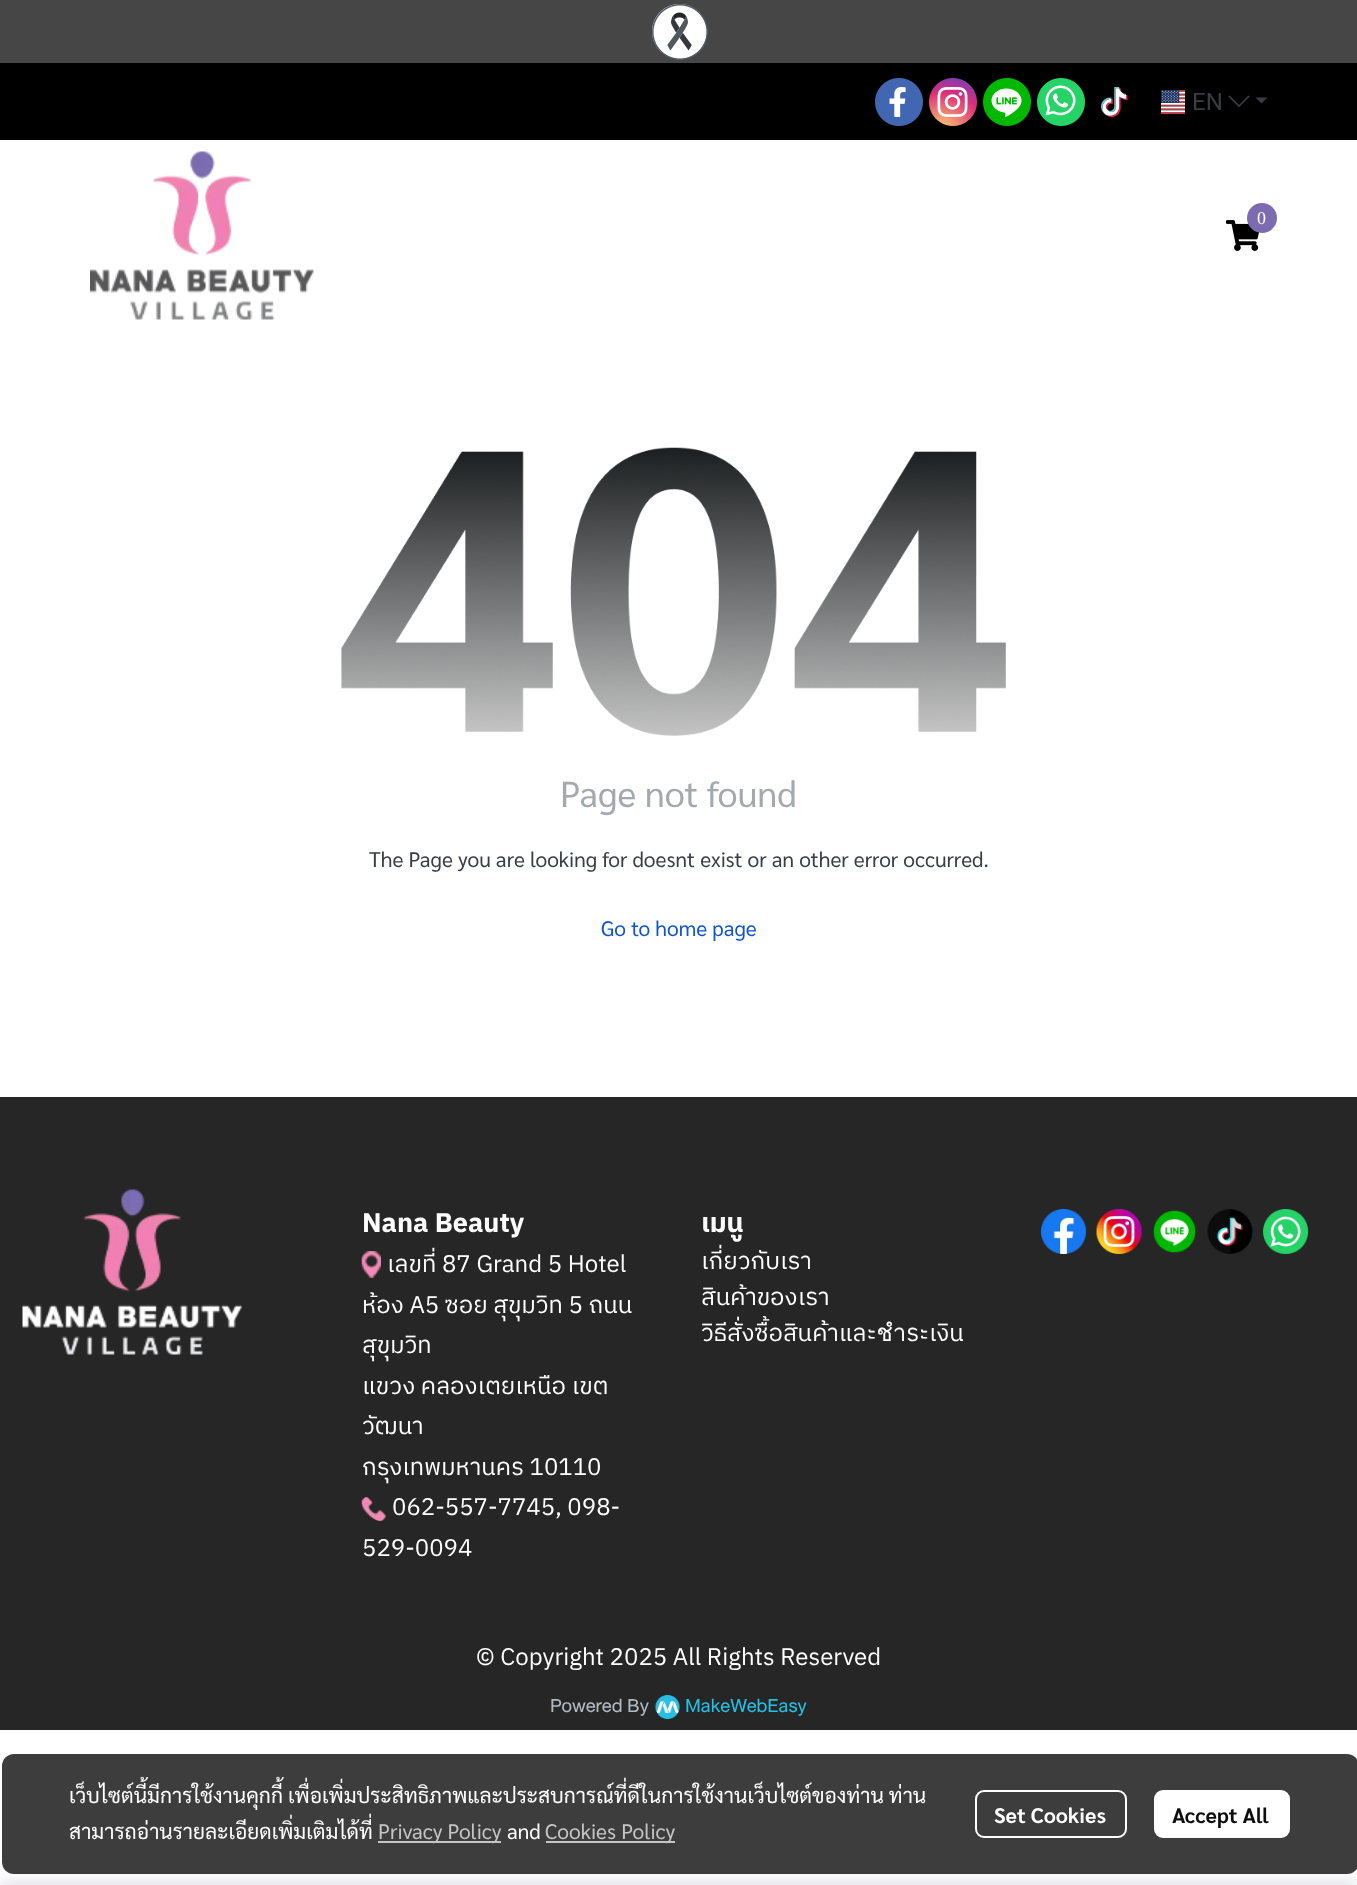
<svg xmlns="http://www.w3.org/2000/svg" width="1357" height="1885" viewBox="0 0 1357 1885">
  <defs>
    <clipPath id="clip1"><rect x="362" y="1190" width="295" height="394"/></clipPath>
    <clipPath id="clip2"><rect x="702" y="1190" width="294" height="178"/></clipPath>
    <filter id="blur1" x="-50%" y="-200%" width="200%" height="500%"><feGaussianBlur stdDeviation="7.5"/></filter>
  </defs>
  <rect width="100%" height="100%" fill="#ffffff"/>
  <rect x="0" y="0" width="1357" height="63" fill="#464646"/>
  <image x="652" y="4" width="56" height="56" href="img1.png"/>
  <rect x="0" y="63" width="1357" height="77" fill="#000000"/>
  <image x="875" y="78" width="48" height="48" href="img2.png"/>
  <image x="929" y="78" width="48" height="48" href="img3.png"/>
  <image x="983" y="78" width="48" height="48" href="img4.png"/>
  <image x="1037" y="78" width="48" height="48" href="img5.png"/>
  <image x="1101" y="87" width="27" height="30" href="img6.png"/>
  <image x="1161" y="90" width="24" height="24" href="img7.png"/>
  <text x="1192" y="110" font-family="Roboto" font-size="24" fill="#373e44">EN</text>
  <image x="1228" y="95" width="22" height="12" href="img8.png"/>
  <path d="M1255.5 97.5H1267.5L1261.5 103.5Z" fill="#373e44"/>
  <image x="90" y="151" width="224" height="169" href="img9.png"/>
  <image x="1226" y="220" width="33" height="31" href="img10.png"/>
  <circle cx="1262" cy="218" r="15" fill="#7c6bb0"/>
  <text x="1257" y="224" font-family="Liberation Serif" font-size="18" fill="#ffffff">0</text>
  <image x="341" y="447" width="665" height="289" href="img11.png"/>
  <text x="560" y="807" font-family="Sarabun" font-size="36" fill="#a4a9af">Page not found</text>
  <text x="369" y="867" font-family="Sarabun" font-size="21" fill="#373e44">The Page you are looking for doesnt exist or an other error occurred.</text>
  <text x="601" y="936" font-family="Sarabun" font-size="21" fill="#1155cc">Go to home page</text>
  <rect x="0" y="1097" width="1357" height="633" fill="#262626"/>
  <image x="22" y="1189" width="220" height="166" href="img12.png"/>
  <text x="362" y="1232" font-family="IBM Plex Sans Thai" font-size="27" font-weight="bold" fill="#ffffff">Nana Beauty</text>
  <image x="361" y="1251" width="20" height="27" href="img13.png"/>
  <text x="387" y="1272" font-family="IBM Plex Sans Thai" font-size="24" fill="#ffffff">เลขที่ 87 Grand 5 Hotel</text>
  <g clip-path="url(#clip1)">
    <text x="362" y="1313" font-family="IBM Plex Sans Thai" font-size="24" fill="#ffffff">ห้อง A5 ซอย สุขุมวิท 5 ถนน</text>
    <text x="362" y="1353" font-family="IBM Plex Sans Thai" font-size="24" fill="#ffffff">สุขุมวิท</text>
  </g>
  <text x="362" y="1394" font-family="IBM Plex Sans Thai" font-size="24" fill="#ffffff">แขวง คลองเตยเหนือ เขต</text>
  <g clip-path="url(#clip1)">
    <text x="362" y="1434" font-family="IBM Plex Sans Thai" font-size="24" fill="#ffffff">วัฒนา</text>
  </g>
  <text x="362" y="1475" font-family="IBM Plex Sans Thai" font-size="24" fill="#ffffff">กรุงเทพมหานคร 10110</text>
  <image x="361" y="1497" width="25" height="24" href="img14.png"/>
  <text x="392" y="1515" font-family="IBM Plex Sans Thai" font-size="24" fill="#ffffff">062-557-7745, 098-</text>
  <text x="362" y="1556" font-family="IBM Plex Sans Thai" font-size="24" fill="#ffffff">529-0094</text>
  <text x="701" y="1232" font-family="IBM Plex Sans Thai" font-size="27" font-weight="bold" fill="#ffffff">เมนู</text>
  <g clip-path="url(#clip2)">
    <text x="701" y="1269" font-family="IBM Plex Sans Thai" font-size="24" fill="#ffffff">เกี่ยวกับเรา</text>
    <text x="701" y="1305" font-family="IBM Plex Sans Thai" font-size="24" fill="#ffffff">สินค้าของเรา</text>
    <text x="701" y="1341" font-family="IBM Plex Sans Thai" font-size="24" fill="#ffffff">วิธีสั่งซื้อสินค้าและชำระเงิน</text>
  </g>
  <image x="1041" y="1209" width="45" height="45" href="img15.png"/>
  <image x="1096" y="1209" width="46" height="45" href="img16.png"/>
  <image x="1153" y="1210" width="43" height="43" href="img17.png"/>
  <image x="1207" y="1209" width="46" height="45" href="img18.png"/>
  <image x="1263" y="1209" width="45" height="45" href="img19.png"/>
  <text x="476" y="1665" font-family="IBM Plex Sans Thai" font-size="24" fill="#ffffff">© Copyright 2025 All Rights Reserved</text>
  <text x="550" y="1712" font-family="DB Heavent" font-size="27" fill="#b1b9c1">Powered By</text>
  <image x="655" y="1695" width="25" height="24" href="img20.png"/>
  <text x="685" y="1712" font-family="DB Heavent" font-size="27" fill="#28bee3">MakeWebEasy</text>
  <rect x="0" y="1883" width="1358" height="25" fill="#00354a" fill-opacity="0.15" filter="url(#blur1)"/>
  <rect x="2" y="1754" width="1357" height="120" rx="12" fill="#000000" fill-opacity="0.76"/>
  <text x="69" y="1803" font-family="Sarabun" font-size="21" fill="#ffffff">เว็บไซต์นี้มีการใช้งานคุกกี้ เพื่อเพิ่มประสิทธิภาพและประสบการณ์ที่ดีในการใช้งานเว็บไซต์ของท่าน ท่าน</text>
  <text x="69" y="1839" font-family="Sarabun" font-size="21" fill="#ffffff">สามารถอ่านรายละเอียดเพิ่มเติมได้ที่</text>
  <rect x="378" y="1841" width="123" height="2" fill="#c5c5c5"/>
  <text x="378" y="1839" font-family="Sarabun" font-size="21" fill="#c5c5c5">Privacy Policy</text>
  <text x="507" y="1839" font-family="Sarabun" font-size="21" fill="#ffffff">and</text>
  <rect x="546" y="1841" width="129" height="2" fill="#c5c5c5"/>
  <text x="545" y="1839" font-family="Sarabun" font-size="21" fill="#c5c5c5">Cookies Policy</text>
  <rect x="976" y="1791" width="150" height="46" rx="8" fill="none" stroke="#ffffff" stroke-width="2"/>
  <text x="994" y="1823" font-family="Sarabun" font-size="21" font-weight="bold" fill="#ffffff">Set Cookies</text>
  <rect x="1154" y="1790" width="136" height="48" rx="9" fill="#ffffff"/>
  <text x="1172" y="1823" font-family="Sarabun" font-size="21" font-weight="bold" fill="#0d0d0d">Accept All</text>
</svg>
